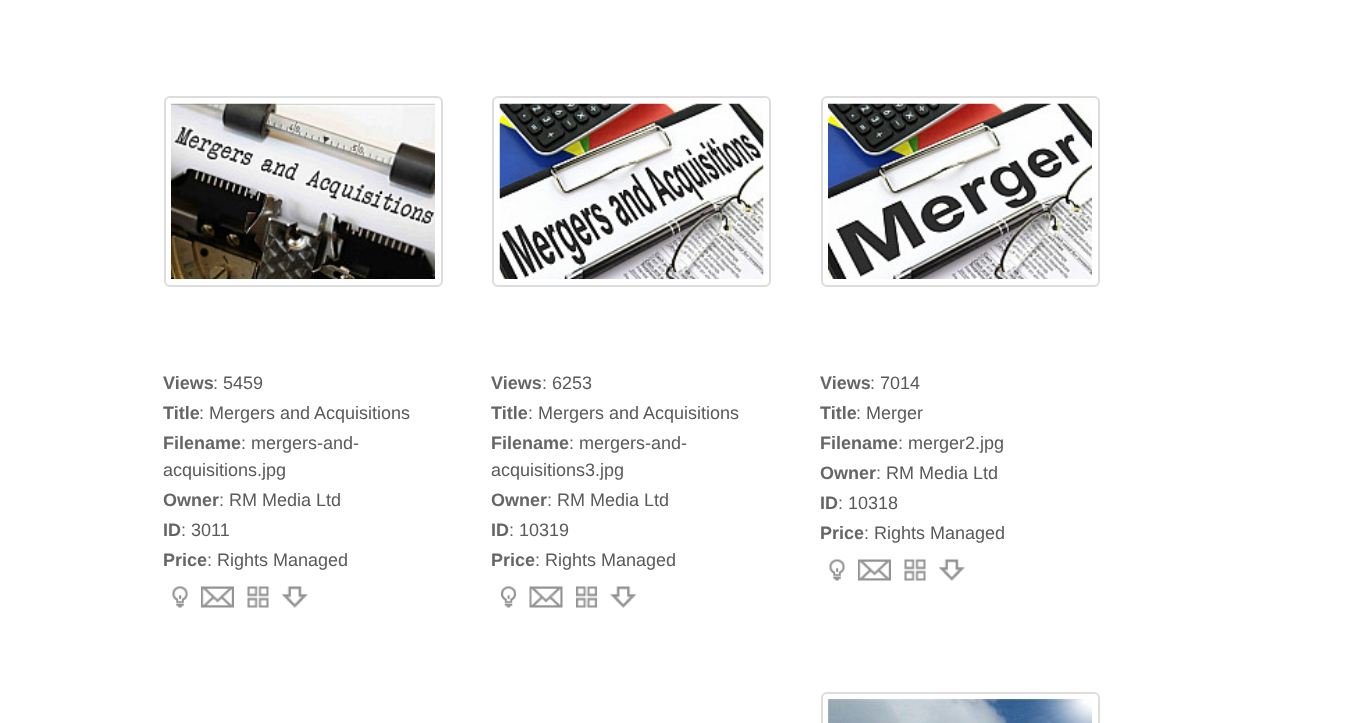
<svg xmlns="http://www.w3.org/2000/svg" width="1363" height="723" viewBox="0 0 1363 723">
  <rect width="100%" height="100%" fill="#ffffff"/>
  <rect x="165" y="97" width="277" height="189" rx="5" fill="none" stroke="#dddddd" stroke-width="2"/>
  <image x="171" y="103" width="264" height="176" href="img1.png"/>
  <text x="163" y="389" font-family="Liberation Sans" font-size="18" font-weight="bold" fill="#666666">Views</text>
  <text x="213" y="389" font-family="Liberation Sans" font-size="18" fill="#5a5a5a">: 5459</text>
  <text x="163" y="419" font-family="Liberation Sans" font-size="18" font-weight="bold" fill="#666666">Title</text>
  <text x="199" y="419" font-family="Liberation Sans" font-size="18" fill="#5a5a5a">: Mergers and Acquisitions</text>
  <text x="163" y="449" font-family="Liberation Sans" font-size="18" font-weight="bold" fill="#666666">Filename</text>
  <text x="241" y="449" font-family="Liberation Sans" font-size="18" fill="#5a5a5a">: mergers-and-</text>
  <text x="163" y="476" font-family="Liberation Sans" font-size="18" fill="#5a5a5a">acquisitions.jpg</text>
  <text x="163" y="506" font-family="Liberation Sans" font-size="18" font-weight="bold" fill="#666666">Owner</text>
  <text x="219" y="506" font-family="Liberation Sans" font-size="18" fill="#5a5a5a">: RM Media Ltd</text>
  <text x="163" y="536" font-family="Liberation Sans" font-size="18" font-weight="bold" fill="#666666">ID</text>
  <text x="181" y="536" font-family="Liberation Sans" font-size="18" fill="#5a5a5a">: 3011</text>
  <text x="163" y="566" font-family="Liberation Sans" font-size="18" font-weight="bold" fill="#666666">Price</text>
  <text x="207" y="566" font-family="Liberation Sans" font-size="18" fill="#5a5a5a">: Rights Managed</text>
  <image x="172" y="586" width="16" height="22" href="img2.png"/>
  <image x="201" y="586" width="33" height="22" href="img3.png"/>
  <image x="247" y="586" width="22" height="22" href="img4.png"/>
  <image x="282" y="586" width="26" height="22" href="img5.png"/>
  <rect x="493" y="97" width="277" height="189" rx="5" fill="none" stroke="#dddddd" stroke-width="2"/>
  <image x="499" y="103" width="265" height="176" href="img6.png"/>
  <text x="491" y="389" font-family="Liberation Sans" font-size="18" font-weight="bold" fill="#666666">Views</text>
  <text x="542" y="389" font-family="Liberation Sans" font-size="18" fill="#5a5a5a">: 6253</text>
  <text x="491" y="419" font-family="Liberation Sans" font-size="18" font-weight="bold" fill="#666666">Title</text>
  <text x="528" y="419" font-family="Liberation Sans" font-size="18" fill="#5a5a5a">: Mergers and Acquisitions</text>
  <text x="491" y="449" font-family="Liberation Sans" font-size="18" font-weight="bold" fill="#666666">Filename</text>
  <text x="569" y="449" font-family="Liberation Sans" font-size="18" fill="#5a5a5a">: mergers-and-</text>
  <text x="491" y="476" font-family="Liberation Sans" font-size="18" fill="#5a5a5a">acquisitions3.jpg</text>
  <text x="491" y="506" font-family="Liberation Sans" font-size="18" font-weight="bold" fill="#666666">Owner</text>
  <text x="547" y="506" font-family="Liberation Sans" font-size="18" fill="#5a5a5a">: RM Media Ltd</text>
  <text x="491" y="536" font-family="Liberation Sans" font-size="18" font-weight="bold" fill="#666666">ID</text>
  <text x="509" y="536" font-family="Liberation Sans" font-size="18" fill="#5a5a5a">: 10319</text>
  <text x="491" y="566" font-family="Liberation Sans" font-size="18" font-weight="bold" fill="#666666">Price</text>
  <text x="535" y="566" font-family="Liberation Sans" font-size="18" fill="#5a5a5a">: Rights Managed</text>
  <image x="501" y="586" width="15" height="22" href="img7.png"/>
  <image x="529" y="586" width="34" height="22" href="img8.png"/>
  <image x="576" y="586" width="21" height="22" href="img9.png"/>
  <image x="610" y="586" width="26" height="22" href="img10.png"/>
  <rect x="822" y="97" width="277" height="189" rx="5" fill="none" stroke="#dddddd" stroke-width="2"/>
  <image x="828" y="103" width="264" height="176" href="img11.png"/>
  <text x="820" y="389" font-family="Liberation Sans" font-size="18" font-weight="bold" fill="#666666">Views</text>
  <text x="870" y="389" font-family="Liberation Sans" font-size="18" fill="#5a5a5a">: 7014</text>
  <text x="820" y="419" font-family="Liberation Sans" font-size="18" font-weight="bold" fill="#666666">Title</text>
  <text x="856" y="419" font-family="Liberation Sans" font-size="18" fill="#5a5a5a">: Merger</text>
  <text x="820" y="449" font-family="Liberation Sans" font-size="18" font-weight="bold" fill="#666666">Filename</text>
  <text x="898" y="449" font-family="Liberation Sans" font-size="18" fill="#5a5a5a">: merger2.jpg</text>
  <text x="820" y="479" font-family="Liberation Sans" font-size="18" font-weight="bold" fill="#666666">Owner</text>
  <text x="876" y="479" font-family="Liberation Sans" font-size="18" fill="#5a5a5a">: RM Media Ltd</text>
  <text x="820" y="509" font-family="Liberation Sans" font-size="18" font-weight="bold" fill="#666666">ID</text>
  <text x="838" y="509" font-family="Liberation Sans" font-size="18" fill="#5a5a5a">: 10318</text>
  <text x="820" y="539" font-family="Liberation Sans" font-size="18" font-weight="bold" fill="#666666">Price</text>
  <text x="864" y="539" font-family="Liberation Sans" font-size="18" fill="#5a5a5a">: Rights Managed</text>
  <image x="829" y="559" width="16" height="22" href="img2.png"/>
  <image x="858" y="559" width="33" height="22" href="img12.png"/>
  <image x="904" y="559" width="22" height="22" href="img13.png"/>
  <image x="939" y="559" width="26" height="22" href="img5.png"/>
  <rect x="822" y="693" width="277" height="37" rx="5" fill="none" stroke="#dddddd" stroke-width="2"/>
  <image x="828" y="699" width="264" height="24" href="img14.png"/>
</svg>
